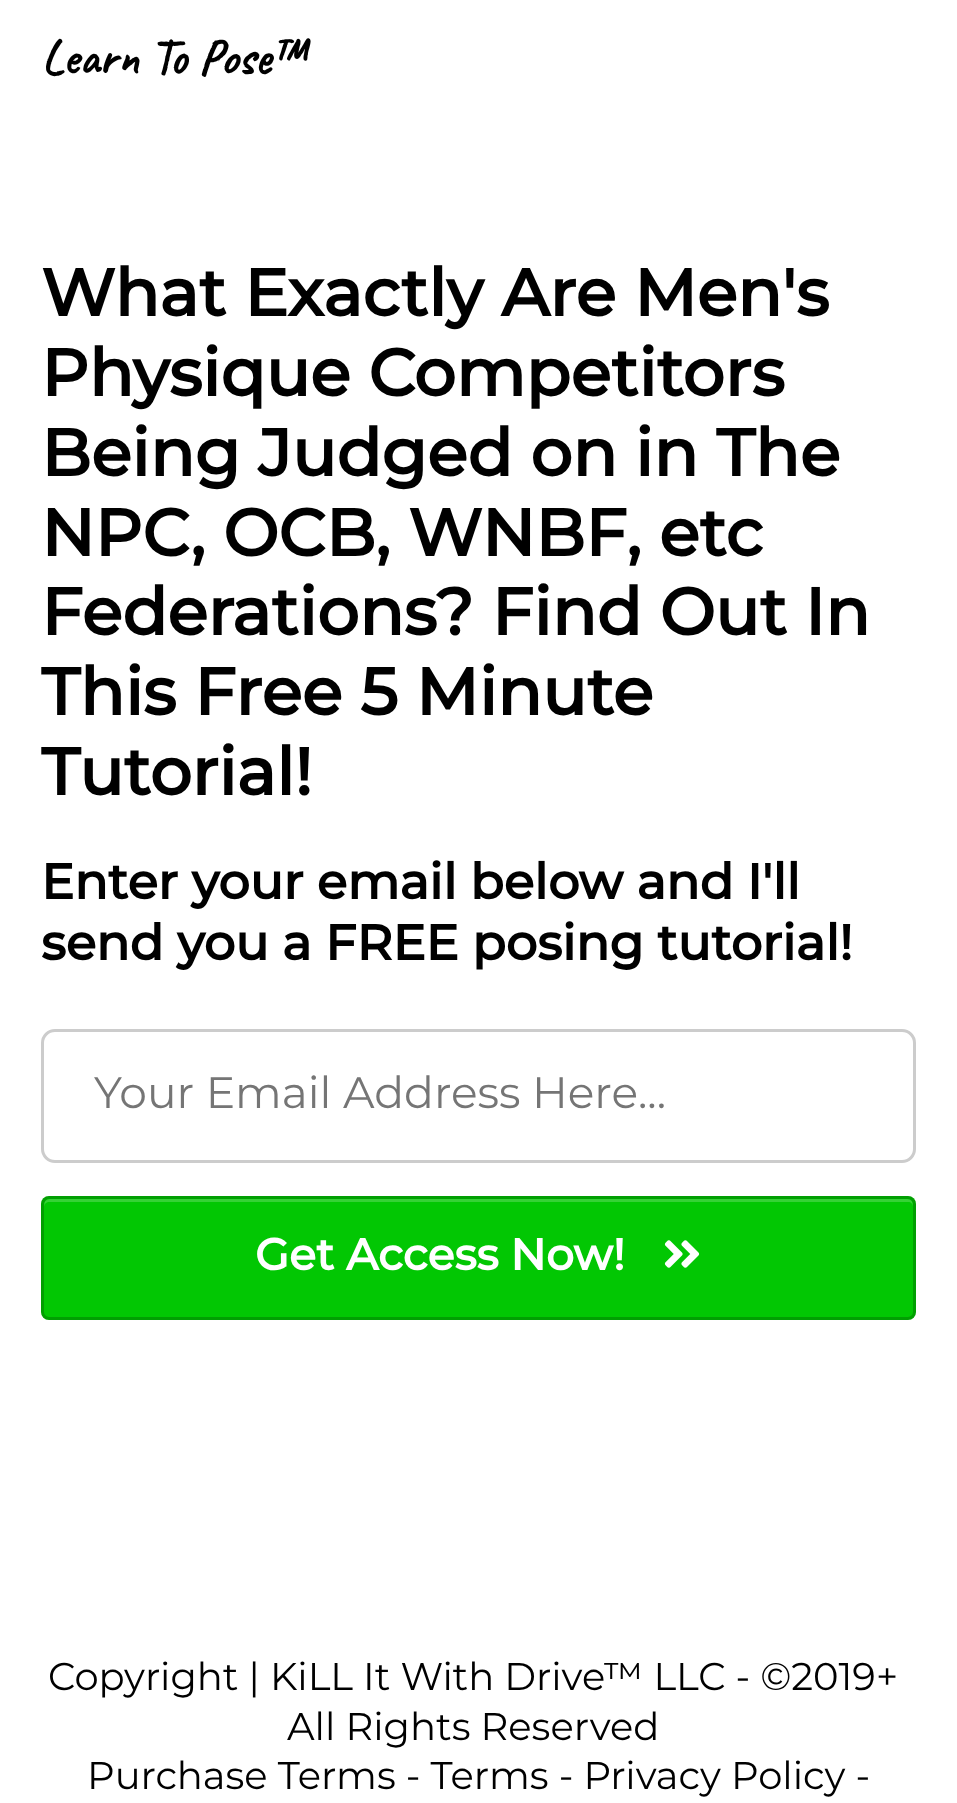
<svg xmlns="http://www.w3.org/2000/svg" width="957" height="1803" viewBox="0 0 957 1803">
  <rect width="100%" height="100%" fill="#ffffff"/>
  <text x="41" y="74" font-family="Caveat" font-size="49.5" font-weight="bold" fill="#000000">Learn To Pose™</text>
  <text x="41" y="316" font-family="Montserrat" font-size="66" font-weight="bold" fill="#000000">What Exactly Are Men's</text>
  <text x="41" y="396" font-family="Montserrat" font-size="66" font-weight="bold" fill="#000000">Physique Competitors</text>
  <text x="41" y="476" font-family="Montserrat" font-size="66" font-weight="bold" fill="#000000">Being Judged on in The</text>
  <text x="41" y="556" font-family="Montserrat" font-size="66" font-weight="bold" fill="#000000">NPC, OCB, WNBF, etc</text>
  <text x="41" y="635" font-family="Montserrat" font-size="66" font-weight="bold" fill="#000000">Federations? Find Out In</text>
  <text x="41" y="715" font-family="Montserrat" font-size="66" font-weight="bold" fill="#000000">This Free 5 Minute</text>
  <text x="41" y="795" font-family="Montserrat" font-size="66" font-weight="bold" fill="#000000">Tutorial!</text>
  <text x="41" y="899" font-family="Montserrat" font-size="49.5" font-weight="bold" fill="#000000">Enter your email below and I'll</text>
  <text x="41" y="960" font-family="Montserrat" font-size="49.5" font-weight="bold" fill="#000000">send you a FREE posing tutorial!</text>
  <rect x="42.5" y="1030.5" width="872" height="131" rx="12.5" fill="none" stroke="#cccccc" stroke-width="3"/>
  <text x="94" y="1108" font-family="Montserrat" font-size="44" font-weight="100" fill="#757575">Your Email Address Here...</text>
  <rect x="41" y="1196" width="875" height="124" rx="8" fill="#02c703"/>
  <path d="M50 1202H908C911 1202 913 1204 913 1207C913 1203 912 1199 907 1199H50C45 1199 44 1203 44 1207C44 1204 46 1202 50 1202Z" fill="#35d235"/>
  <rect x="42.5" y="1197.5" width="872" height="121" rx="6.5" fill="none" stroke="#000000" stroke-opacity="0.2" stroke-width="3"/>
  <text x="255" y="1270" font-family="Montserrat" font-size="44" font-weight="bold" fill="#ffffff">Get Access Now!</text>
  <image x="664" y="1240" width="36" height="28" href="img1.png"/>
  <text x="48" y="1690" font-family="Montserrat" font-size="38.5" font-weight="100" fill="#000000">Copyright | KiLL It With Drive™ LLC - ©2019+</text>
  <text x="287" y="1740" font-family="Montserrat" font-size="38.5" font-weight="100" fill="#000000">All Rights Reserved</text>
  <text x="87" y="1789" font-family="Montserrat" font-size="38.5" font-weight="100" fill="#000000">Purchase Terms - Terms - Privacy Policy -</text>
</svg>
